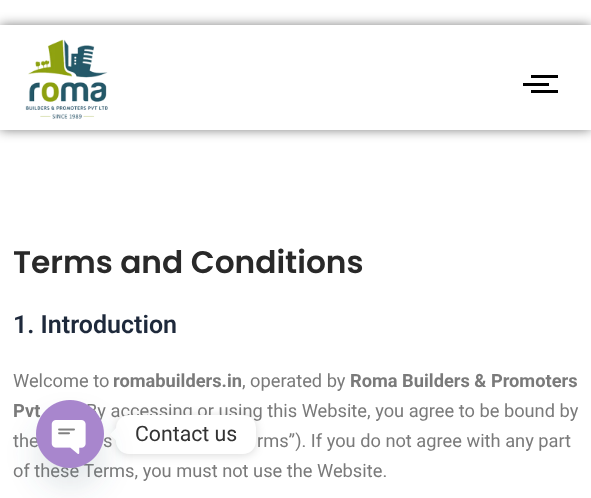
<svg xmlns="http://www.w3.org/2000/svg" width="591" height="498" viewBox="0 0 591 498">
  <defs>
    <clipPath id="clip1"><path d="M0 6H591V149H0ZM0 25H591V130H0Z" clip-rule="evenodd"/></clipPath>
    <filter id="blur1" x="-50%" y="-200%" width="200%" height="500%"><feGaussianBlur stdDeviation="6"/></filter>
    <filter id="blur2" x="-50%" y="-200%" width="200%" height="500%"><feGaussianBlur stdDeviation="5"/></filter>
    <filter id="blur3" x="-50%" y="-200%" width="200%" height="500%"><feGaussianBlur stdDeviation="15"/></filter>
  </defs>
  <rect width="100%" height="100%" fill="#ffffff"/>
  <g clip-path="url(#clip1)">
    <rect x="0" y="25" width="591" height="105" fill="#000000" fill-opacity="0.5" filter="url(#blur1)"/>
  </g>
  <image x="25" y="39" width="83" height="80" href="img1.png"/>
  <rect x="531" y="75" width="27" height="3" fill="#000000"/>
  <rect x="523" y="83" width="26" height="3" fill="#000000"/>
  <rect x="531" y="90" width="27" height="3" fill="#000000"/>
  <text x="13" y="273" font-family="Poppins" font-size="31.25" font-weight="600" fill="#292929">Terms and Conditions</text>
  <text x="13" y="333" font-family="Roboto" font-size="25" font-weight="600" fill="#1e293b">1. Introduction</text>
  <text x="13" y="387" font-family="Roboto" font-size="18.25" fill="#7a7a7a">Welcome to</text>
  <text x="113" y="387" font-family="Roboto" font-size="18.25" font-weight="bold" fill="#7a7a7a">romabuilders.in</text>
  <text x="242" y="387" font-family="Roboto" font-size="18.25" fill="#7a7a7a">, operated by</text>
  <text x="350" y="387" font-family="Roboto" font-size="18.25" font-weight="bold" fill="#7a7a7a">Roma Builders &amp; Promoters</text>
  <text x="13" y="417" font-family="Roboto" font-size="18.25" font-weight="bold" fill="#7a7a7a">Pvt</text>
  <text x="86" y="417" font-family="Roboto" font-size="18.25" fill="#7a7a7a">By accessing or using this Website, you agree to be bound by</text>
  <text x="13" y="447" font-family="Roboto" font-size="18.25" fill="#7a7a7a">the</text>
  <text x="103" y="447" font-family="Roboto" font-size="18.25" fill="#7a7a7a">s</text>
  <text x="257" y="447" font-family="Roboto" font-size="18.25" fill="#7a7a7a">rms”). If you do not agree with any part</text>
  <text x="13" y="477" font-family="Roboto" font-size="18.25" fill="#7a7a7a">of these Terms, you must not use the Website.</text>
  <rect x="116" y="416" width="140" height="39" rx="13" fill="#000000" fill-opacity="0.15" filter="url(#blur2)"/>
  <rect x="116" y="415" width="140" height="39" rx="13" fill="#ffffff"/>
  <path d="M116 428V440.5L110 434.5Z" fill="#ffffff"/>
  <rect x="36" y="420" width="68" height="68" rx="34" fill="#49687e" fill-opacity="0.16" filter="url(#blur3)"/>
  <image x="36" y="400" width="68" height="68" href="img2.png"/>
  <text x="135" y="441" font-family="Roboto" font-size="21.25" fill="#333333">Contact us</text>
</svg>
